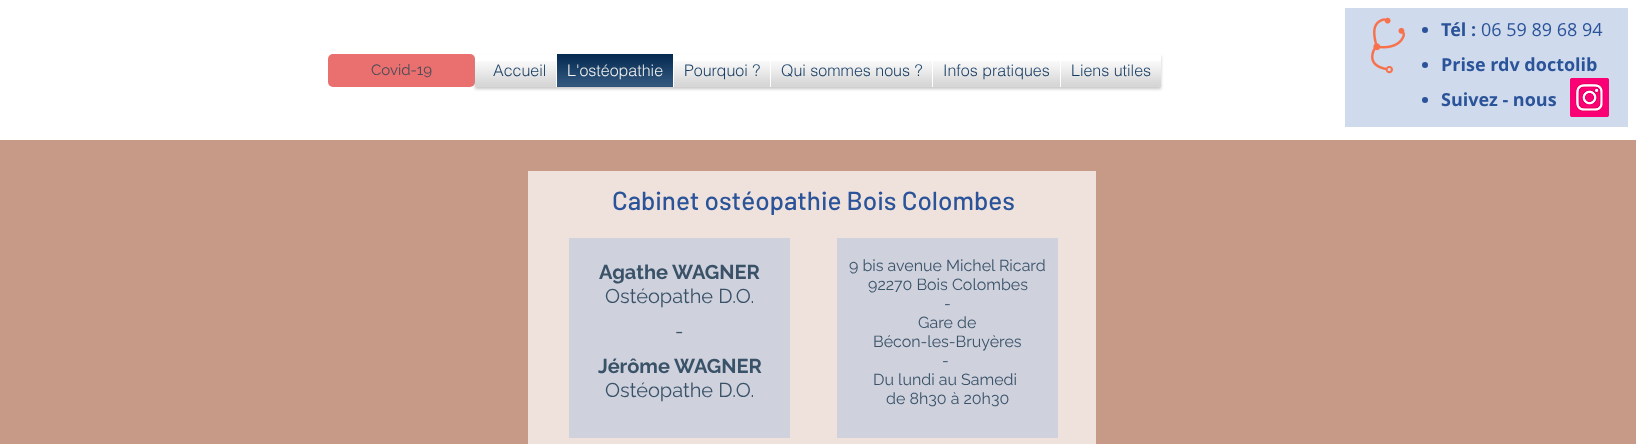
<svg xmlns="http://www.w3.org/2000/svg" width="1636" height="444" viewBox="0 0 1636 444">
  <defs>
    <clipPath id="clip1"><path d="M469 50H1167V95H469ZM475 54H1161V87H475Z" clip-rule="evenodd"/></clipPath>
    <filter id="blur1" x="-50%" y="-200%" width="200%" height="500%"><feGaussianBlur stdDeviation="1.5"/></filter>
  </defs>
  <rect width="100%" height="100%" fill="#ffffff"/>
  <rect x="328" y="54" width="147" height="33" rx="5" fill="#ea6f6f"/>
  <text x="371" y="75" font-family="Raleway" font-size="15" fill="#484d56">Covid-19</text>
  <g clip-path="url(#clip1)">
    <rect x="475" y="56" width="686" height="33" fill="#a29e9e" fill-opacity="0.6" filter="url(#blur1)"/>
  </g>
  <image x="475" y="61" width="8" height="26" href="img1.png"/>
  <text x="493" y="76" font-family="helvetica" font-size="16" font-weight="300" fill="#002e5d">Accueil</text>
  <image x="493" y="64" width="52" height="12" href="img2.png"/>
  <image x="483" y="61" width="73" height="26" href="img3.png"/>
  <rect x="557" y="54" width="116" height="33" fill="#002e5d"/>
  <text x="567" y="76" font-family="helvetica" font-size="16" font-weight="300" fill="#ffffff">L'ostéopathie</text>
  <image x="557" y="54" width="116" height="25" href="img4.png"/>
  <image x="557" y="54" width="116" height="33" href="img5.png"/>
  <text x="684" y="76" font-family="helvetica" font-size="16" font-weight="300" fill="#002e5d">Pourquoi ?</text>
  <image x="685" y="64" width="75" height="15" href="img6.png"/>
  <image x="674" y="61" width="96" height="26" href="img7.png"/>
  <text x="781" y="76" font-family="helvetica" font-size="16" font-weight="300" fill="#002e5d">Qui sommes nous ?</text>
  <image x="781" y="64" width="141" height="13" href="img8.png"/>
  <image x="771" y="61" width="161" height="26" href="img9.png"/>
  <text x="943" y="76" font-family="helvetica" font-size="16" font-weight="300" fill="#002e5d">Infos pratiques</text>
  <image x="944" y="64" width="105" height="15" href="img10.png"/>
  <image x="933" y="61" width="127" height="26" href="img11.png"/>
  <text x="1071" y="76" font-family="helvetica" font-size="16" font-weight="300" fill="#002e5d">Liens utiles</text>
  <image x="1072" y="64" width="79" height="12" href="img12.png"/>
  <image x="1061" y="61" width="100" height="26" href="img13.png"/>
  <rect x="0" y="140" width="1636" height="304" fill="#c79987"/>
  <rect x="528" y="171" width="568" height="273" fill="#efe2dd"/>
  <text x="612" y="210" font-family="Barlow" font-size="26" font-weight="500" fill="#2a5399">Cabinet ostéopathie Bois Colombes</text>
  <rect x="569" y="238" width="221" height="200" fill="#cfd1dd"/>
  <text x="599" y="279" font-family="Raleway" font-size="20" font-weight="bold" fill="#395268">Agathe WAGNER</text>
  <text x="605" y="303" font-family="Raleway" font-size="20" fill="#395268">Ostéopathe D.O.</text>
  <text x="675" y="338" font-family="Raleway" font-size="20" fill="#395268">-</text>
  <text x="598" y="373" font-family="Raleway" font-size="20" font-weight="bold" fill="#395268">Jérôme WAGNER</text>
  <text x="605" y="397" font-family="Raleway" font-size="20" fill="#395268">Ostéopathe D.O.</text>
  <rect x="837" y="238" width="221" height="200" fill="#cfd1dd"/>
  <text x="849" y="271" font-family="Raleway" font-size="16" fill="#395268">9 bis avenue Michel Ricard</text>
  <text x="868" y="290" font-family="Raleway" font-size="16" fill="#395268">92270 Bois Colombes</text>
  <text x="944" y="309" font-family="Raleway" font-size="16" fill="#395268">-</text>
  <text x="918" y="328" font-family="Raleway" font-size="16" fill="#395268">Gare de</text>
  <text x="873" y="347" font-family="Raleway" font-size="16" fill="#395268">Bécon-les-Bruyères</text>
  <text x="942" y="366" font-family="Raleway" font-size="16" fill="#395268">-</text>
  <text x="873" y="385" font-family="Raleway" font-size="16" fill="#395268">Du lundi au Samedi</text>
  <text x="886" y="404" font-family="Raleway" font-size="16" fill="#395268">de 8h30 à 20h30</text>
  <rect x="1345" y="8" width="283" height="119" fill="#cfdaec"/>
  <image x="1371" y="17" width="34" height="57" href="img14.png"/>
  <circle cx="1425" cy="30" r="3" fill="#2a5399"/>
  <text x="1441" y="36" font-family="Open Sans" font-size="18" font-weight="bold" fill="#2a5399">Tél :</text>
  <text x="1481" y="36" font-family="Open Sans" font-size="18" fill="#2a5399">06 59 89 68 94</text>
  <circle cx="1425" cy="65" r="3" fill="#2a5399"/>
  <text x="1441" y="71" font-family="Open Sans" font-size="18" font-weight="bold" fill="#2a5399">Prise rdv doctolib</text>
  <circle cx="1425" cy="100" r="3" fill="#2a5399"/>
  <text x="1441" y="106" font-family="Open Sans" font-size="18" font-weight="bold" fill="#2a5399">Suivez - nous</text>
  <image x="1570" y="78" width="39" height="39" href="img15.png"/>
</svg>
